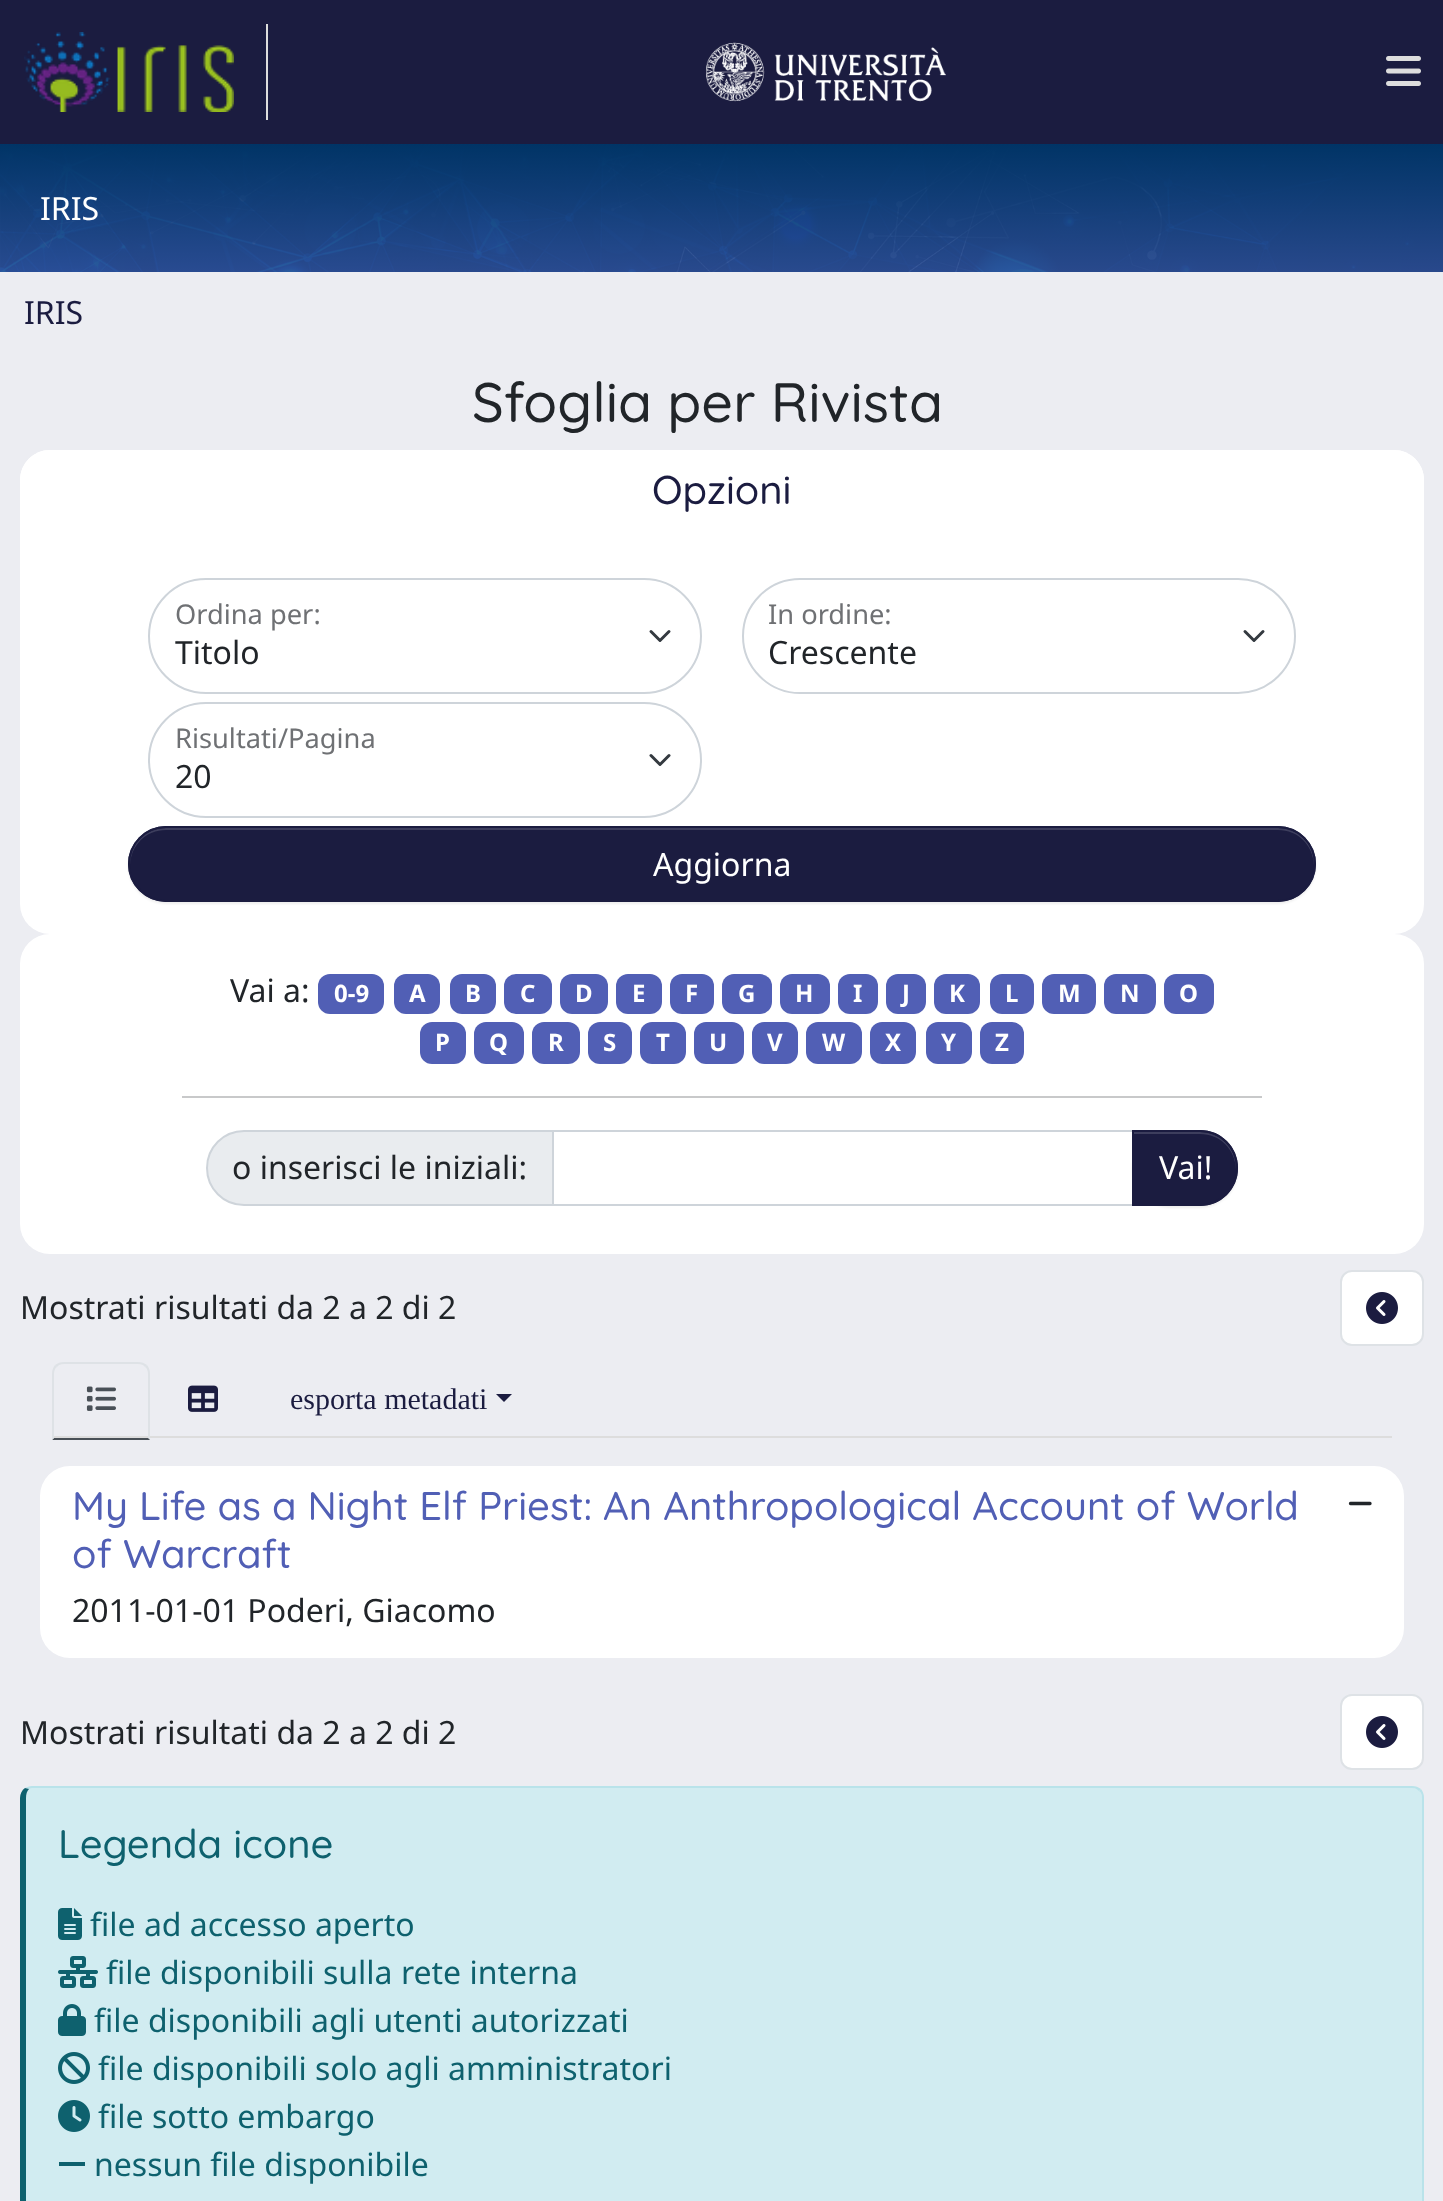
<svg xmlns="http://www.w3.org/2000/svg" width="1443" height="2201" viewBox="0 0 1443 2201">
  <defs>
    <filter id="blur1" x="-50%" y="-200%" width="200%" height="500%"><feGaussianBlur stdDeviation="1"/></filter>
  </defs>
  <rect width="100%" height="100%" fill="#ecedf2"/>
  <rect x="0" y="0" width="1443" height="144" fill="#1b1c40"/>
  <rect x="266" y="24" width="2" height="96" fill="#dddddd"/>
  <image x="24" y="32" width="210" height="80" href="img1.png"/>
  <image x="706" y="42" width="240" height="60" href="img2.png"/>
  <image x="1386" y="56" width="35" height="30" href="img3.png"/>
  <image x="0" y="144" width="1443" height="128" href="img4.png"/>
  <text x="40" y="220" font-family="Noto Sans" font-size="32" fill="#ffffff">IRIS</text>
  <text x="24" y="324" font-family="Noto Sans" font-size="32" fill="#1b1c40">IRIS</text>
  <text x="472" y="422" font-family="Quicksand" font-size="55.5" font-weight="500" fill="#212529">Sfoglia per Rivista</text>
  <rect x="20" y="450" width="1404" height="484" rx="30" fill="#ffffff"/>
  <path d="M50 450H1394C1410.5 450 1424 463.5 1424 480V546H20V480C20 463.5 33.5 450 50 450Z" fill="#ffffff"/>
  <text x="652" y="504" font-family="Quicksand" font-size="40" font-weight="500" fill="#1b1c40">Opzioni</text>
  <path d="M651 631.5L660 640.5L669 631.5" fill="none" stroke="#343a40" stroke-width="3" stroke-linecap="round" stroke-linejoin="round"/>
  <rect x="149" y="579" width="552" height="114" rx="57" fill="none" stroke="#ced4da" stroke-width="2"/>
  <text x="175" y="624" font-family="Noto Sans" font-size="27.25" fill="#6f7174">Ordina per:</text>
  <text x="175" y="664" font-family="Noto Sans" font-size="32" fill="#212529">Titolo</text>
  <path d="M1245 631.5L1254 640.5L1263 631.5" fill="none" stroke="#343a40" stroke-width="3" stroke-linecap="round" stroke-linejoin="round"/>
  <rect x="743" y="579" width="552" height="114" rx="57" fill="none" stroke="#ced4da" stroke-width="2"/>
  <text x="768" y="624" font-family="Noto Sans" font-size="27.25" fill="#6f7174">In ordine:</text>
  <text x="768" y="664" font-family="Noto Sans" font-size="32" fill="#212529">Crescente</text>
  <path d="M651 755.5L660 764.5L669 755.5" fill="none" stroke="#343a40" stroke-width="3" stroke-linecap="round" stroke-linejoin="round"/>
  <rect x="149" y="703" width="552" height="114" rx="57" fill="none" stroke="#ced4da" stroke-width="2"/>
  <text x="175" y="748" font-family="Noto Sans" font-size="27.25" fill="#6f7174">Risultati/Pagina</text>
  <text x="175" y="788" font-family="Noto Sans" font-size="32" fill="#212529">20</text>
  <rect x="128" y="828" width="1188" height="76" rx="38" fill="#000000" fill-opacity="0.07" filter="url(#blur1)"/>
  <rect x="128" y="826" width="1188" height="76" rx="38" fill="#1b1c40"/>
  <path d="M166 830H1278C1298 830 1313 845 1314 865V864C1314 844 1298 828 1278 828H166C146 828 130 844 130 864V865C131 845 146 830 166 830Z" fill="#3d3e5d"/>
  <rect x="129" y="827" width="1186" height="74" rx="37" fill="none" stroke="#1b1c40" stroke-width="2"/>
  <text x="653" y="876" font-family="Noto Sans" font-size="32" fill="#ffffff">Aggiorna</text>
  <rect x="20" y="934" width="1404" height="320" rx="30" fill="#ffffff"/>
  <text x="230" y="1002" font-family="Noto Sans" font-size="32" fill="#212529">Vai a:</text>
  <rect x="318" y="974" width="66" height="40" rx="12" fill="#515fb5"/>
  <text x="334" y="1002" font-family="Noto Sans" font-size="24" font-weight="bold" fill="#ffffff">0-9</text>
  <rect x="394" y="974" width="46" height="40" rx="12" fill="#515fb5"/>
  <text x="409" y="1002" font-family="Noto Sans" font-size="24" font-weight="bold" fill="#ffffff">A</text>
  <rect x="450" y="974" width="46" height="40" rx="12" fill="#515fb5"/>
  <text x="465" y="1002" font-family="Noto Sans" font-size="24" font-weight="bold" fill="#ffffff">B</text>
  <rect x="504" y="974" width="48" height="40" rx="12" fill="#515fb5"/>
  <text x="520" y="1002" font-family="Noto Sans" font-size="24" font-weight="bold" fill="#ffffff">C</text>
  <rect x="560" y="974" width="48" height="40" rx="12" fill="#515fb5"/>
  <text x="575" y="1002" font-family="Noto Sans" font-size="24" font-weight="bold" fill="#ffffff">D</text>
  <rect x="616" y="974" width="46" height="40" rx="12" fill="#515fb5"/>
  <text x="632" y="1002" font-family="Noto Sans" font-size="24" font-weight="bold" fill="#ffffff">E</text>
  <rect x="670" y="974" width="44" height="40" rx="12" fill="#515fb5"/>
  <text x="685" y="1002" font-family="Noto Sans" font-size="24" font-weight="bold" fill="#ffffff">F</text>
  <rect x="722" y="974" width="50" height="40" rx="12" fill="#515fb5"/>
  <text x="738" y="1002" font-family="Noto Sans" font-size="24" font-weight="bold" fill="#ffffff">G</text>
  <rect x="780" y="974" width="50" height="40" rx="12" fill="#515fb5"/>
  <text x="795" y="1002" font-family="Noto Sans" font-size="24" font-weight="bold" fill="#ffffff">H</text>
  <rect x="838" y="974" width="40" height="40" rx="12" fill="#515fb5"/>
  <text x="853" y="1002" font-family="Noto Sans" font-size="24" font-weight="bold" fill="#ffffff">I</text>
  <rect x="886" y="974" width="40" height="40" rx="12" fill="#515fb5"/>
  <text x="902" y="1002" font-family="Noto Sans" font-size="24" font-weight="bold" fill="#ffffff">J</text>
  <rect x="934" y="974" width="46" height="40" rx="12" fill="#515fb5"/>
  <text x="949" y="1002" font-family="Noto Sans" font-size="24" font-weight="bold" fill="#ffffff">K</text>
  <rect x="990" y="974" width="44" height="40" rx="12" fill="#515fb5"/>
  <text x="1005" y="1002" font-family="Noto Sans" font-size="24" font-weight="bold" fill="#ffffff">L</text>
  <rect x="1042" y="974" width="54" height="40" rx="12" fill="#515fb5"/>
  <text x="1058" y="1002" font-family="Noto Sans" font-size="24" font-weight="bold" fill="#ffffff">M</text>
  <rect x="1104" y="974" width="52" height="40" rx="12" fill="#515fb5"/>
  <text x="1120" y="1002" font-family="Noto Sans" font-size="24" font-weight="bold" fill="#ffffff">N</text>
  <rect x="1164" y="974" width="50" height="40" rx="12" fill="#515fb5"/>
  <text x="1179" y="1002" font-family="Noto Sans" font-size="24" font-weight="bold" fill="#ffffff">O</text>
  <rect x="420" y="1022" width="46" height="42" rx="12" fill="#515fb5"/>
  <text x="435" y="1051" font-family="Noto Sans" font-size="24" font-weight="bold" fill="#ffffff">P</text>
  <rect x="474" y="1022" width="50" height="42" rx="12" fill="#515fb5"/>
  <text x="489" y="1051" font-family="Noto Sans" font-size="24" font-weight="bold" fill="#ffffff">Q</text>
  <rect x="532" y="1022" width="48" height="42" rx="12" fill="#515fb5"/>
  <text x="548" y="1051" font-family="Noto Sans" font-size="24" font-weight="bold" fill="#ffffff">R</text>
  <rect x="588" y="1022" width="44" height="42" rx="12" fill="#515fb5"/>
  <text x="603" y="1051" font-family="Noto Sans" font-size="24" font-weight="bold" fill="#ffffff">S</text>
  <rect x="640" y="1022" width="46" height="42" rx="12" fill="#515fb5"/>
  <text x="656" y="1051" font-family="Noto Sans" font-size="24" font-weight="bold" fill="#ffffff">T</text>
  <rect x="694" y="1022" width="50" height="42" rx="12" fill="#515fb5"/>
  <text x="709" y="1051" font-family="Noto Sans" font-size="24" font-weight="bold" fill="#ffffff">U</text>
  <rect x="752" y="1022" width="46" height="42" rx="12" fill="#515fb5"/>
  <text x="767" y="1051" font-family="Noto Sans" font-size="24" font-weight="bold" fill="#ffffff">V</text>
  <rect x="806" y="1022" width="56" height="42" rx="12" fill="#515fb5"/>
  <text x="822" y="1051" font-family="Noto Sans" font-size="24" font-weight="bold" fill="#ffffff">W</text>
  <rect x="870" y="1022" width="46" height="42" rx="12" fill="#515fb5"/>
  <text x="885" y="1051" font-family="Noto Sans" font-size="24" font-weight="bold" fill="#ffffff">X</text>
  <rect x="926" y="1022" width="46" height="42" rx="12" fill="#515fb5"/>
  <text x="941" y="1051" font-family="Noto Sans" font-size="24" font-weight="bold" fill="#ffffff">Y</text>
  <rect x="980" y="1022" width="44" height="42" rx="12" fill="#515fb5"/>
  <text x="995" y="1051" font-family="Noto Sans" font-size="24" font-weight="bold" fill="#ffffff">Z</text>
  <rect x="182" y="1096" width="1080" height="2" fill="#c8c9ca"/>
  <path d="M244 1131H553V1205H244C223.5 1205 207 1188.5 207 1168C207 1147.5 223.5 1131 244 1131Z" fill="#e9ecef" stroke="#ced4da" stroke-width="2"/>
  <text x="232" y="1179" font-family="Noto Sans" font-size="32" fill="#212529">o inserisci le iniziali:</text>
  <rect x="553" y="1131" width="580" height="74" fill="none" stroke="#ced4da" stroke-width="2"/>
  <rect x="1132" y="1132" width="106" height="76" rx="38" fill="#000000" fill-opacity="0.07" filter="url(#blur1)"/>
  <path d="M1132 1130H1200C1221 1130 1238 1147 1238 1168C1238 1189 1221 1206 1200 1206H1132Z" fill="#1b1c40"/>
  <path d="M1134 1134H1200C1220 1134 1235 1149 1236 1169V1168C1236 1148 1220 1132 1200 1132H1134Z" fill="#3d3e5d"/>
  <path d="M1133 1131H1200C1220.5 1131 1237 1147.5 1237 1168C1237 1188.5 1220.5 1205 1200 1205H1133Z" fill="none" stroke="#1b1c40" stroke-width="2"/>
  <text x="1159" y="1179" font-family="Noto Sans" font-size="32" fill="#ffffff">Vai!</text>
  <text x="20" y="1319" font-family="Noto Sans" font-size="32" fill="#212529">Mostrati risultati da 2 a 2 di 2</text>
  <rect x="1341" y="1271" width="82" height="74" rx="11" fill="#ffffff" stroke="#dee2e6" stroke-width="2"/>
  <image x="1366" y="1292" width="32" height="32" href="img5.png"/>
  <rect x="52" y="1436" width="1340" height="2" fill="#dddddd"/>
  <path d="M64 1362C60 1362 58 1363 55 1365L57 1367C58 1365 61 1364 64 1364H138C141 1364 144 1365 145 1367L147 1365C144 1363 142 1362 138 1362Z" fill="#dee2e6"/>
  <path d="M150 1440V1374C150 1370 149 1368 147 1365L145 1367C147 1368 148 1371 148 1374V1438Z" fill="#dee2e6"/>
  <path d="M150 1440L148 1438H54L52 1440Z" fill="#495057"/>
  <path d="M52 1440L54 1438V1374C54 1371 55 1368 57 1367L55 1365C53 1368 52 1370 52 1374Z" fill="#dee2e6"/>
  <image x="86" y="1386" width="30" height="25" href="img6.png"/>
  <image x="188" y="1385" width="30" height="27" href="img7.png"/>
  <text x="290" y="1409" font-family="Liberation Serif" font-size="30" fill="#1b1c40">esporta metadati</text>
  <path d="M496 1394H512L504 1402Z" fill="#1b1c40"/>
  <rect x="40" y="1466" width="1364" height="192" rx="30" fill="#ffffff"/>
  <text x="72" y="1520" font-family="Quicksand" font-size="40" font-weight="500" fill="#515fb5">My Life as a Night Elf Priest: An Anthropological Account of World</text>
  <text x="72" y="1568" font-family="Quicksand" font-size="40" font-weight="500" fill="#515fb5">of Warcraft</text>
  <image x="1348" y="1501" width="24" height="5" href="img8.png"/>
  <text x="72" y="1622" font-family="Noto Sans" font-size="32" fill="#212529">2011-01-01 Poderi, Giacomo</text>
  <text x="20" y="1744" font-family="Noto Sans" font-size="32" fill="#212529">Mostrati risultati da 2 a 2 di 2</text>
  <rect x="1341" y="1695" width="82" height="74" rx="11" fill="#ffffff" stroke="#dee2e6" stroke-width="2"/>
  <image x="1366" y="1716" width="32" height="32" href="img5.png"/>
  <path d="M32 1788H1412C1418 1788 1422 1792 1422 1798V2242C1422 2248 1418 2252 1412 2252H32C29 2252 26 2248 26 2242V1798C26 1792 29 1788 32 1788Z" fill="#d1ecf1"/>
  <path d="M32 1786C29 1786 27 1787 25 1788L29 1789L32 1788H1412C1415 1788 1417 1789 1419 1791L1421 1789C1418 1787 1416 1786 1412 1786Z" fill="#b9e3ea"/>
  <path d="M1424 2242V1798C1424 1794 1423 1792 1421 1789L1419 1791C1421 1792 1422 1795 1422 1798V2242C1422 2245 1421 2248 1419 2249L1421 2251C1423 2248 1424 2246 1424 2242Z" fill="#b9e3ea"/>
  <path d="M20 1798V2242C20 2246 22 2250 25 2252L29 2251C27 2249 26 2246 26 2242V1798C26 1794 27 1791 29 1789L25 1788C22 1790 20 1794 20 1798Z" fill="#0e616e"/>
  <text x="58" y="1858" font-family="Quicksand" font-size="40" font-weight="500" fill="#0e616e">Legenda icone</text>
  <image x="58" y="1908" width="24" height="32" href="img9.png"/>
  <text x="90" y="1936" font-family="Noto Sans" font-size="32" fill="#0e616e">file ad accesso aperto</text>
  <image x="58" y="1956" width="40" height="32" href="img10.png"/>
  <text x="106" y="1984" font-family="Noto Sans" font-size="32" fill="#0e616e">file disponibili sulla rete interna</text>
  <image x="58" y="2004" width="28" height="32" href="img11.png"/>
  <text x="94" y="2032" font-family="Noto Sans" font-size="32" fill="#0e616e">file disponibili agli utenti autorizzati</text>
  <image x="58" y="2052" width="32" height="32" href="img12.png"/>
  <text x="98" y="2080" font-family="Noto Sans" font-size="32" fill="#0e616e">file disponibili solo agli amministratori</text>
  <image x="58" y="2100" width="32" height="32" href="img13.png"/>
  <text x="98" y="2128" font-family="Noto Sans" font-size="32" fill="#0e616e">file sotto embargo</text>
  <rect x="59" y="2162" width="26" height="4" fill="#0e616e"/>
  <text x="94" y="2176" font-family="Noto Sans" font-size="32" fill="#0e616e">nessun file disponibile</text>
</svg>
